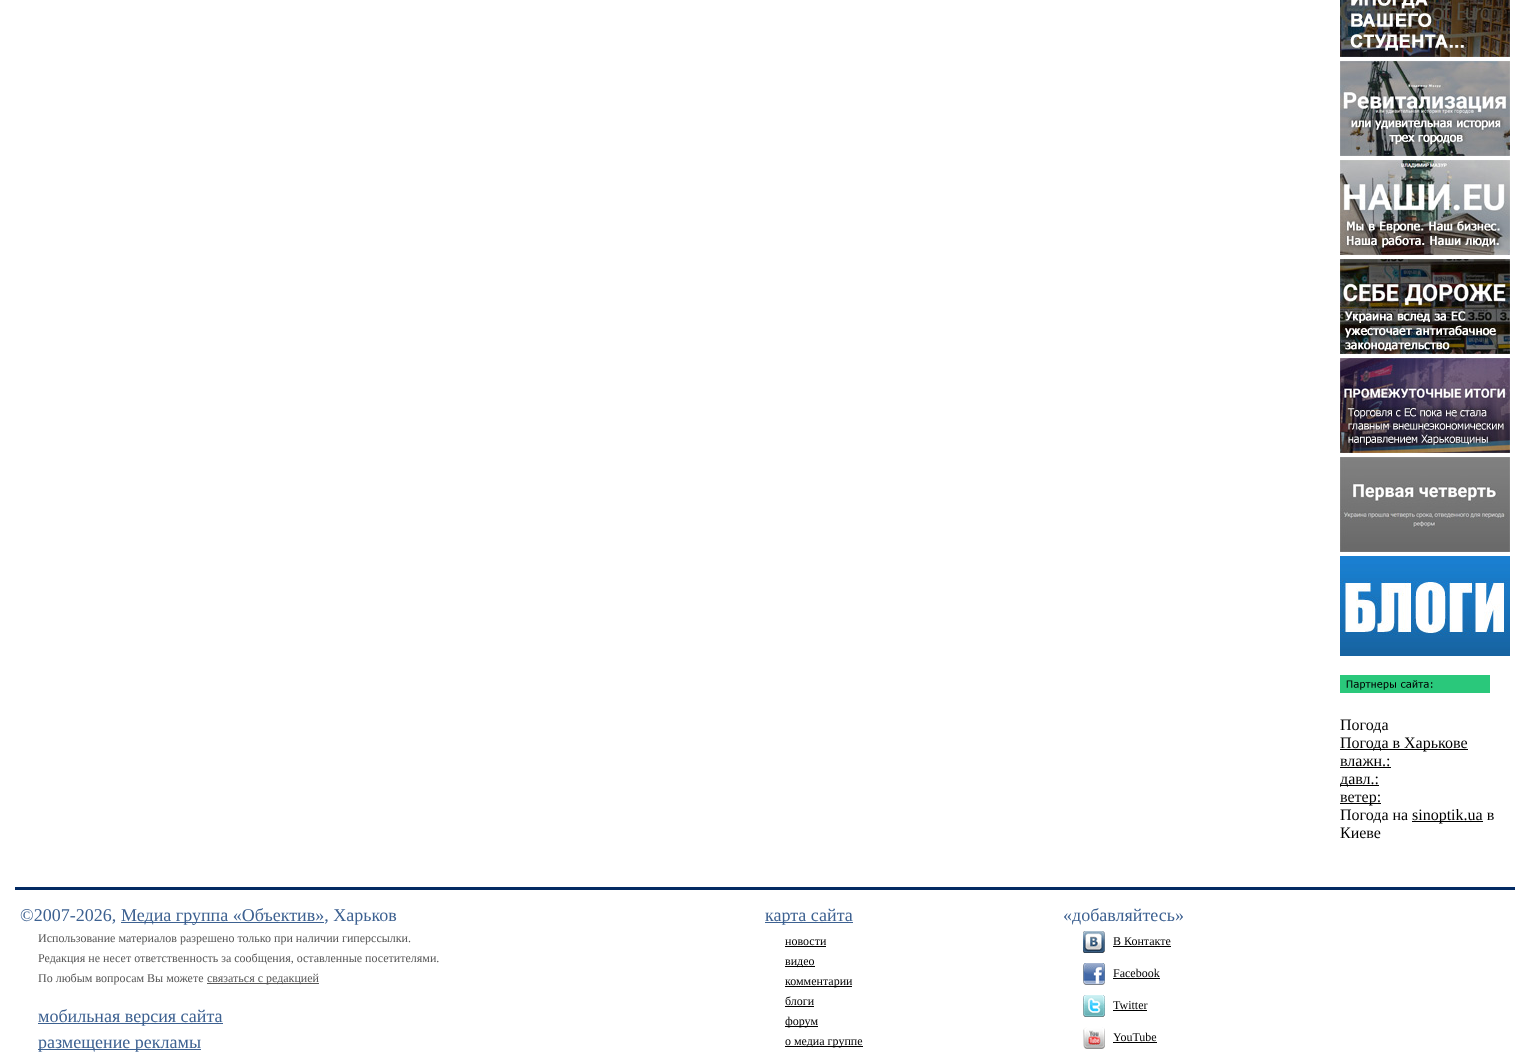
<svg xmlns="http://www.w3.org/2000/svg" width="1520" height="1056" viewBox="0 0 1520 1056">
  <rect width="100%" height="100%" fill="#ffffff"/>
  <image x="1340" y="0" width="170" height="57" href="img1.png"/>
  <image x="1340" y="61" width="170" height="95" href="img2.png"/>
  <image x="1340" y="160" width="170" height="95" href="img3.png"/>
  <image x="1340" y="259" width="170" height="95" href="img4.png"/>
  <image x="1340" y="358" width="170" height="95" href="img5.png"/>
  <image x="1340" y="457" width="170" height="95" href="img6.png"/>
  <image x="1340" y="556" width="170" height="100" href="img7.png"/>
  <image x="1340" y="675" width="150" height="18" href="img8.png"/>
  <text x="1340" y="730" font-family="Liberation Serif" font-size="16" fill="#000000">Погода</text>
  <rect x="1340" y="749" width="128" height="1" fill="#000000"/>
  <text x="1340" y="748" font-family="Liberation Serif" font-size="16" fill="#000000">Погода в Харькове</text>
  <text x="1340" y="766" font-family="Liberation Serif" font-size="16" fill="#000000">влажн.:</text>
  <rect x="1340" y="767" width="51" height="1" fill="#000000"/>
  <rect x="1340" y="785" width="39" height="1" fill="#000000"/>
  <text x="1340" y="784" font-family="Liberation Serif" font-size="16" fill="#000000">давл.:</text>
  <rect x="1340" y="803" width="41" height="1" fill="#000000"/>
  <text x="1340" y="802" font-family="Liberation Serif" font-size="16" fill="#000000">ветер:</text>
  <text x="1340" y="820" font-family="Liberation Serif" font-size="16" fill="#000000">Погода на</text>
  <rect x="1412" y="821" width="71" height="1" fill="#000000"/>
  <text x="1412" y="820" font-family="Liberation Serif" font-size="16" fill="#000000">sinoptik.ua в</text>
  <text x="1340" y="838" font-family="Liberation Serif" font-size="16" fill="#000000">Киеве</text>
  <rect x="15" y="887" width="1500" height="3" fill="#032a63"/>
  <text x="20" y="921" font-family="Liberation Serif" font-size="18" fill="#3d6191">©2007-2026,</text>
  <rect x="121" y="922" width="203" height="1" fill="#3d6191"/>
  <text x="121" y="921" font-family="Liberation Serif" font-size="18" fill="#3d6191">Медиа группа «Объектив», Харьков</text>
  <text x="38" y="942" font-family="Liberation Serif" font-size="12" fill="#575757">Использование материалов разрешено только при наличии гиперссылки.</text>
  <text x="38" y="962" font-family="Liberation Serif" font-size="12" fill="#575757">Редакция не несет ответственность за сообщения, оставленные посетителями.</text>
  <text x="38" y="982" font-family="Liberation Serif" font-size="12" fill="#575757">По любым вопросам Вы можете</text>
  <rect x="207" y="983" width="112" height="1" fill="#575757"/>
  <text x="207" y="982" font-family="Liberation Serif" font-size="12" fill="#575757">связаться с редакцией</text>
  <rect x="38" y="1023" width="185" height="1" fill="#3d6191"/>
  <text x="38" y="1022" font-family="Liberation Serif" font-size="18" fill="#3d6191">мобильная версия сайта</text>
  <rect x="38" y="1049" width="163" height="1" fill="#3d6191"/>
  <text x="38" y="1048" font-family="Liberation Serif" font-size="18" fill="#3d6191">размещение рекламы</text>
  <rect x="765" y="922" width="88" height="1" fill="#3d6191"/>
  <text x="765" y="921" font-family="Liberation Serif" font-size="18" fill="#3d6191">карта сайта</text>
  <text x="785" y="945" font-family="Liberation Serif" font-size="12" fill="#000000">новости</text>
  <rect x="785" y="946" width="41" height="1" fill="#000000"/>
  <rect x="785" y="966" width="30" height="1" fill="#000000"/>
  <text x="785" y="965" font-family="Liberation Serif" font-size="12" fill="#000000">видео</text>
  <rect x="785" y="986" width="67" height="1" fill="#000000"/>
  <text x="785" y="985" font-family="Liberation Serif" font-size="12" fill="#000000">комментарии</text>
  <text x="785" y="1005" font-family="Liberation Serif" font-size="12" fill="#000000">блоги</text>
  <rect x="785" y="1006" width="29" height="1" fill="#000000"/>
  <rect x="785" y="1026" width="33" height="1" fill="#000000"/>
  <text x="785" y="1025" font-family="Liberation Serif" font-size="12" fill="#000000">форум</text>
  <rect x="785" y="1046" width="78" height="1" fill="#000000"/>
  <text x="785" y="1045" font-family="Liberation Serif" font-size="12" fill="#000000">о медиа группе</text>
  <text x="1063" y="921" font-family="Liberation Serif" font-size="18" fill="#3d6191">«добавляйтесь»</text>
  <image x="1083" y="931" width="22" height="22" href="img9.png"/>
  <text x="1113" y="945" font-family="Liberation Serif" font-size="12" fill="#000000">В Контакте</text>
  <rect x="1113" y="946" width="58" height="1" fill="#000000"/>
  <image x="1083" y="963" width="22" height="22" href="img10.png"/>
  <text x="1113" y="977" font-family="Liberation Serif" font-size="12" fill="#000000">Facebook</text>
  <rect x="1113" y="978" width="47" height="1" fill="#000000"/>
  <image x="1083" y="995" width="22" height="22" href="img11.png"/>
  <text x="1113" y="1009" font-family="Liberation Serif" font-size="12" fill="#000000">Twitter</text>
  <rect x="1113" y="1010" width="34" height="1" fill="#000000"/>
  <image x="1083" y="1027" width="22" height="22" href="img12.png"/>
  <text x="1113" y="1041" font-family="Liberation Serif" font-size="12" fill="#000000">YouTube</text>
  <rect x="1113" y="1042" width="44" height="1" fill="#000000"/>
</svg>
